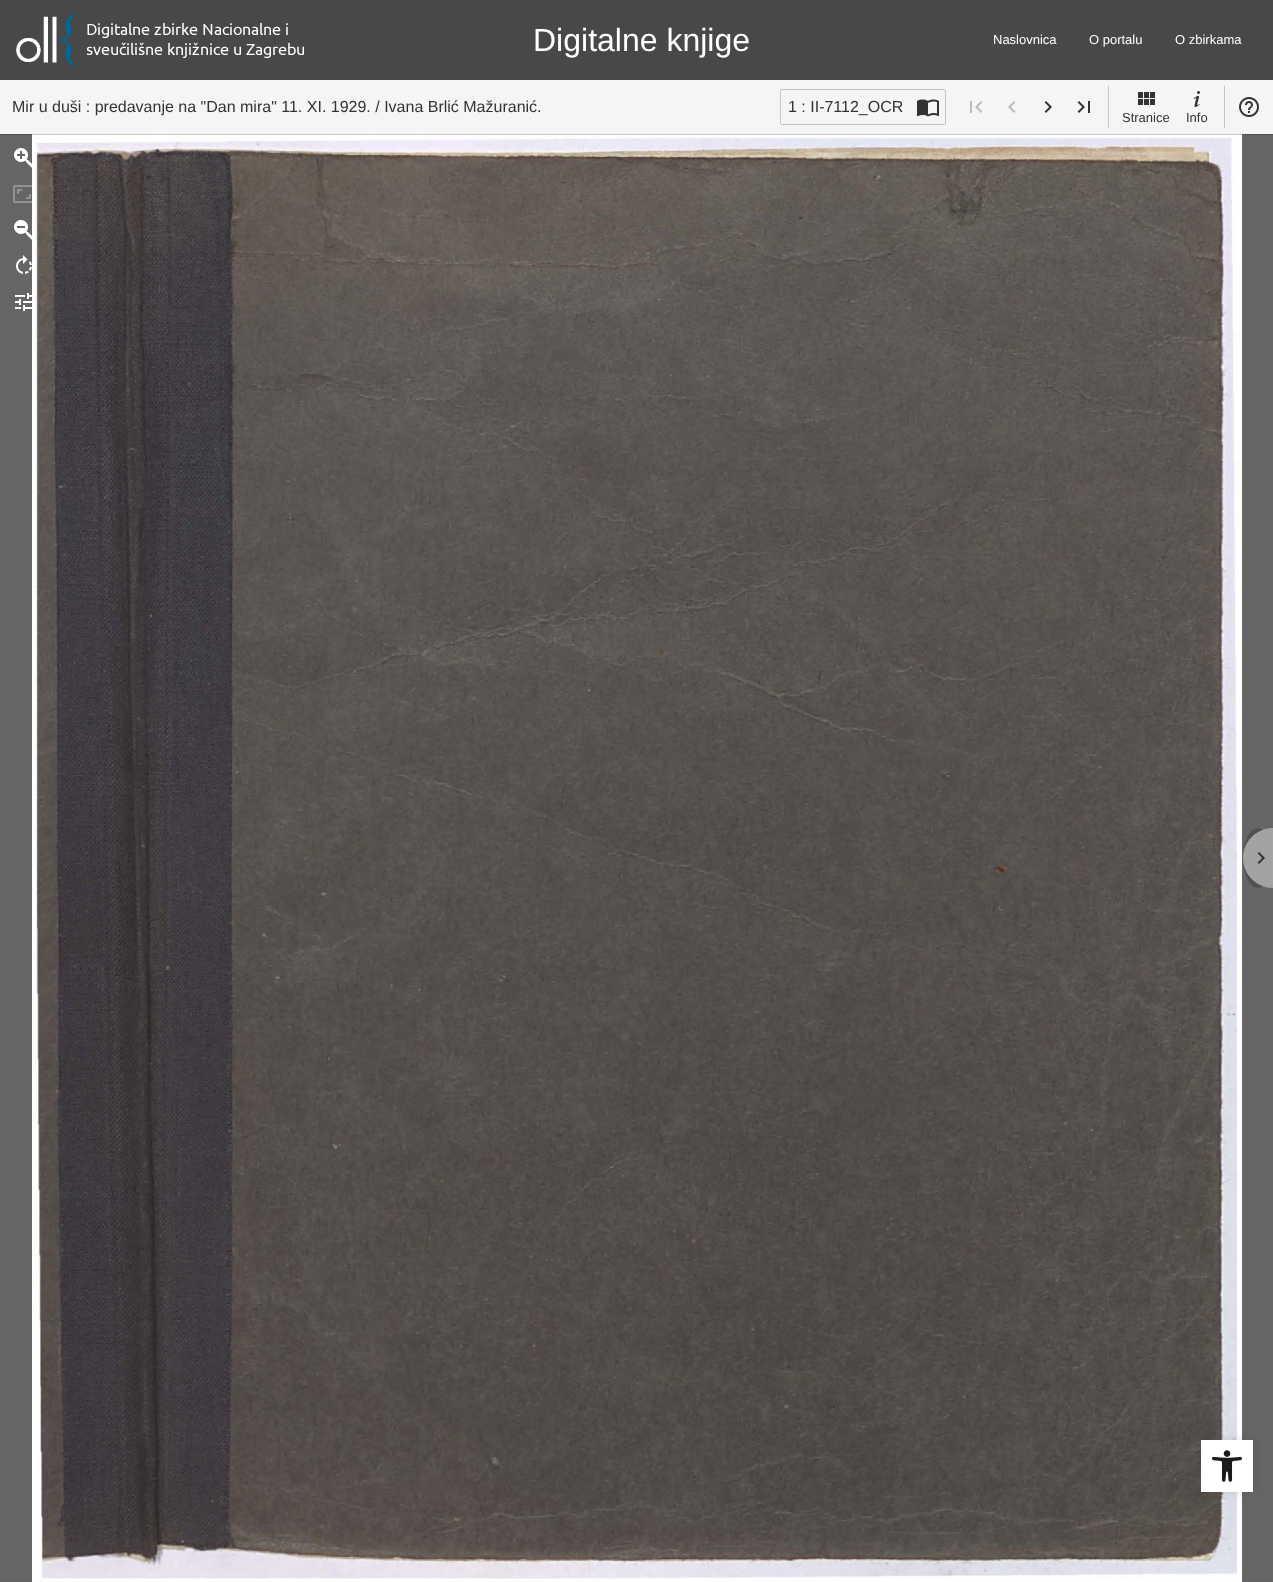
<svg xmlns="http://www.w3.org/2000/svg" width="1273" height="1582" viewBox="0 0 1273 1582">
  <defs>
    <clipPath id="clip1"><path d="M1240 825H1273V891H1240ZM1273 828V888C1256.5 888 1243 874.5 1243 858C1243 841.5 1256.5 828 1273 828Z" clip-rule="evenodd"/></clipPath>
    <filter id="blur1" x="-50%" y="-200%" width="200%" height="500%"><feGaussianBlur stdDeviation="0.5"/></filter>
    <filter id="blur2" x="-50%" y="-200%" width="200%" height="500%"><feGaussianBlur stdDeviation="5"/></filter>
  </defs>
  <rect width="100%" height="100%" fill="#666666"/>
  <rect x="0" y="0" width="1273" height="80" fill="#484848"/>
  <image x="16" y="14" width="288" height="52" href="img1.png"/>
  <text x="533" y="51" font-family="Liberation Sans" font-size="32" fill="#ffffff">Digitalne knjige</text>
  <text x="993" y="44" font-family="Liberation Sans" font-size="13" fill="#ffffff">Naslovnica</text>
  <text x="1089" y="44" font-family="Liberation Sans" font-size="13" fill="#ffffff">O portalu</text>
  <text x="1175" y="44" font-family="Liberation Sans" font-size="13" fill="#ffffff">O zbirkama</text>
  <image x="1" y="137" width="1269" height="1445" href="img2.png"/>
  <image x="32" y="134" width="1210" height="1448" href="img16.png"/>
  <rect x="0" y="134" width="1273" height="1" fill="#000000" fill-opacity="0.2"/>
  <rect x="0" y="80" width="1273" height="54" fill="#f5f5f5"/>
  <text x="12" y="112" font-family="Liberation Sans" font-size="16" fill="#333333">Mir u duši : predavanje na "Dan mira" 11. XI. 1929. / Ivana Brlić Mažuranić.</text>
  <rect x="780.5" y="89.5" width="165" height="35" rx="1.5" fill="none" stroke="#c4c4c4"/>
  <text x="788" y="112" font-family="Liberation Sans" font-size="16" fill="#333333">1 : II-7112_OCR</text>
  <image x="917" y="99" width="22" height="18" href="img3.png"/>
  <image x="970" y="101" width="13" height="12" href="img4.png"/>
  <image x="1008" y="101" width="8" height="12" href="img5.png"/>
  <image x="1044" y="101" width="8" height="12" href="img6.png"/>
  <image x="1077" y="101" width="13" height="12" href="img7.png"/>
  <rect x="1108" y="86" width="1" height="42" fill="#c4c4c4"/>
  <image x="1138" y="92" width="17" height="13" href="img8.png"/>
  <text x="1122" y="122" font-family="Liberation Sans" font-size="13" fill="#333333">Stranice</text>
  <image x="1193" y="91" width="7" height="16" href="img9.png"/>
  <text x="1186" y="122" font-family="Liberation Sans" font-size="13" fill="#333333">Info</text>
  <rect x="1224" y="86" width="1" height="42" fill="#c4c4c4"/>
  <image x="1239" y="97" width="20" height="20" href="img10.png"/>
  <image x="14" y="148" width="18" height="20" href="img11.png"/>
  <image x="13" y="185" width="19" height="18" href="img12.png"/>
  <image x="14" y="220" width="19" height="20" href="img13.png"/>
  <image x="16" y="255" width="16" height="19" href="img14.png"/>
  <image x="15" y="293" width="17" height="18" href="img15.png"/>
  <g clip-path="url(#clip1)">
    <rect x="1243" y="828" width="30" height="60" rx="30" fill="#000000" fill-opacity="0.2" filter="url(#blur1)"/>
  </g>
  <path d="M1273 828V888C1256.5 888 1243 874.5 1243 858C1243 841.5 1256.5 828 1273 828Z" fill="#ffffff" fill-opacity="0.4"/>
  <image x="1257" y="852" width="8" height="12" href="img17.png"/>
  <rect x="1201" y="1440" width="52" height="52" fill="#000000" fill-opacity="0.1" filter="url(#blur2)"/>
  <rect x="1201" y="1440" width="52" height="52" fill="#ffffff"/>
  <image x="1212" y="1450" width="30" height="32" href="img18.png"/>
</svg>
